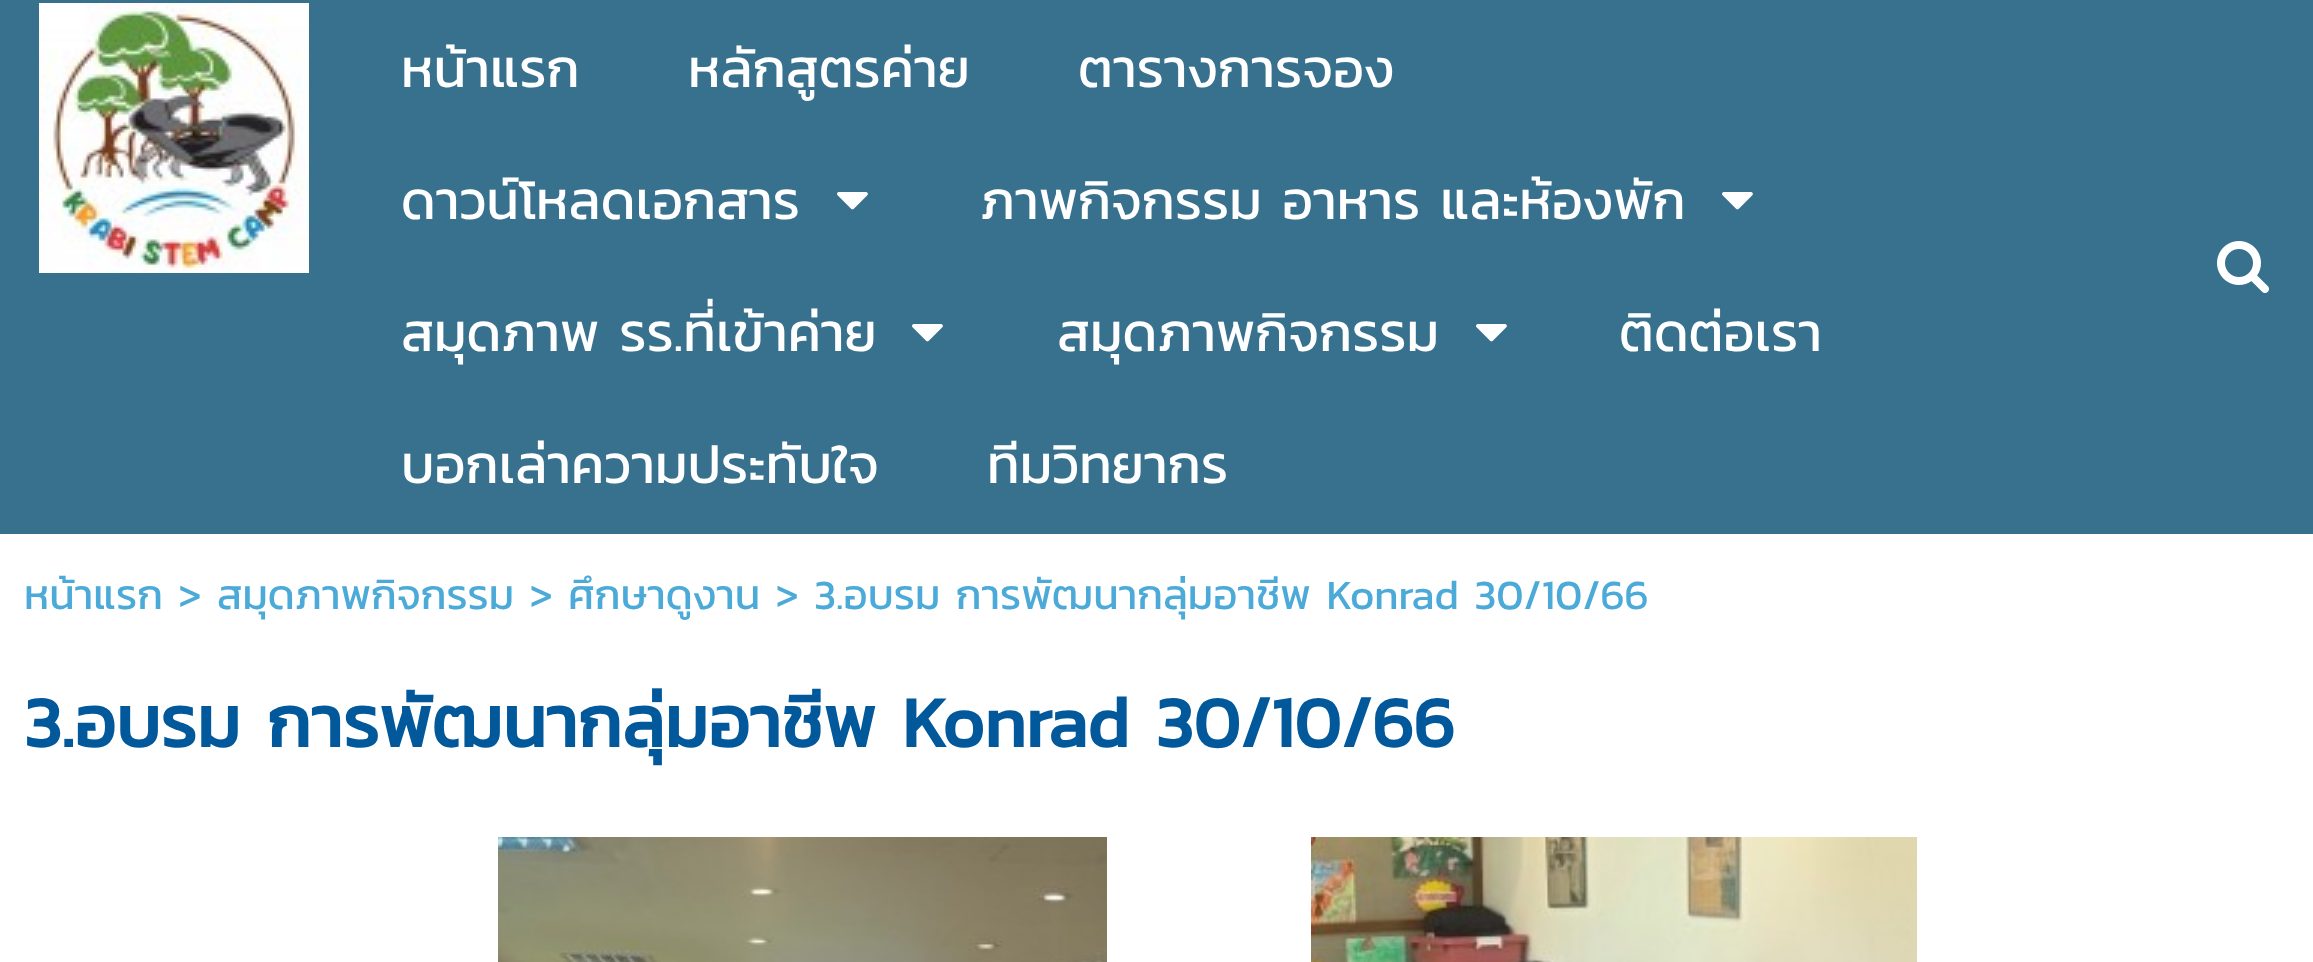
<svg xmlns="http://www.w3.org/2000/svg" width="2313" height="962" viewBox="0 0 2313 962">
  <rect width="100%" height="100%" fill="#ffffff"/>
  <rect x="0" y="0" width="2313" height="534" fill="#37718e"/>
  <image x="39" y="3" width="270" height="270" href="img1.png"/>
  <text x="401" y="87" font-family="Kanit" font-size="54" fill="#ffffff">หน้าแรก</text>
  <text x="688" y="87" font-family="Kanit" font-size="54" fill="#ffffff">หลักสูตรค่าย</text>
  <text x="1078" y="87" font-family="Kanit" font-size="54" fill="#ffffff">ตารางการจอง</text>
  <text x="401" y="219" font-family="Kanit" font-size="54" fill="#ffffff">ดาวน์โหลดเอกสาร</text>
  <image x="837" y="192" width="31" height="18" href="img2.png"/>
  <text x="980" y="219" font-family="Kanit" font-size="54" fill="#ffffff">ภาพกิจกรรม อาหาร และห้องพัก</text>
  <image x="1722" y="192" width="31" height="18" href="img2.png"/>
  <text x="401" y="351" font-family="Kanit" font-size="54" fill="#ffffff">สมุดภาพ รร.ที่เข้าค่าย</text>
  <image x="912" y="324" width="31" height="18" href="img2.png"/>
  <text x="1057" y="351" font-family="Kanit" font-size="54" fill="#ffffff">สมุดภาพกิจกรรม</text>
  <image x="1476" y="324" width="31" height="18" href="img2.png"/>
  <text x="1619" y="351" font-family="Kanit" font-size="54" fill="#ffffff">ติดต่อเรา</text>
  <text x="401" y="483" font-family="Kanit" font-size="54" fill="#ffffff">บอกเล่าความประทับใจ</text>
  <text x="987" y="483" font-family="Kanit" font-size="54" fill="#ffffff">ทีมวิทยากร</text>
  <image x="2217" y="241" width="52" height="52" href="img3.png"/>
  <text x="24" y="609" font-family="Kanit" font-size="42" fill="#4caad9">หน้าแรก &gt; สมุดภาพกิจกรรม &gt; ศึกษาดูงาน &gt; 3.อบรม การพัฒนากลุ่มอาชีพ Konrad 30/10/66</text>
  <text x="24" y="747" font-family="Kanit" font-size="72" font-weight="bold" fill="#01589b">3.อบรม การพัฒนากลุ่มอาชีพ Konrad 30/10/66</text>
  <image x="498" y="837" width="609" height="125" href="img4.png"/>
  <image x="1311" y="837" width="606" height="125" href="img5.png"/>
</svg>
